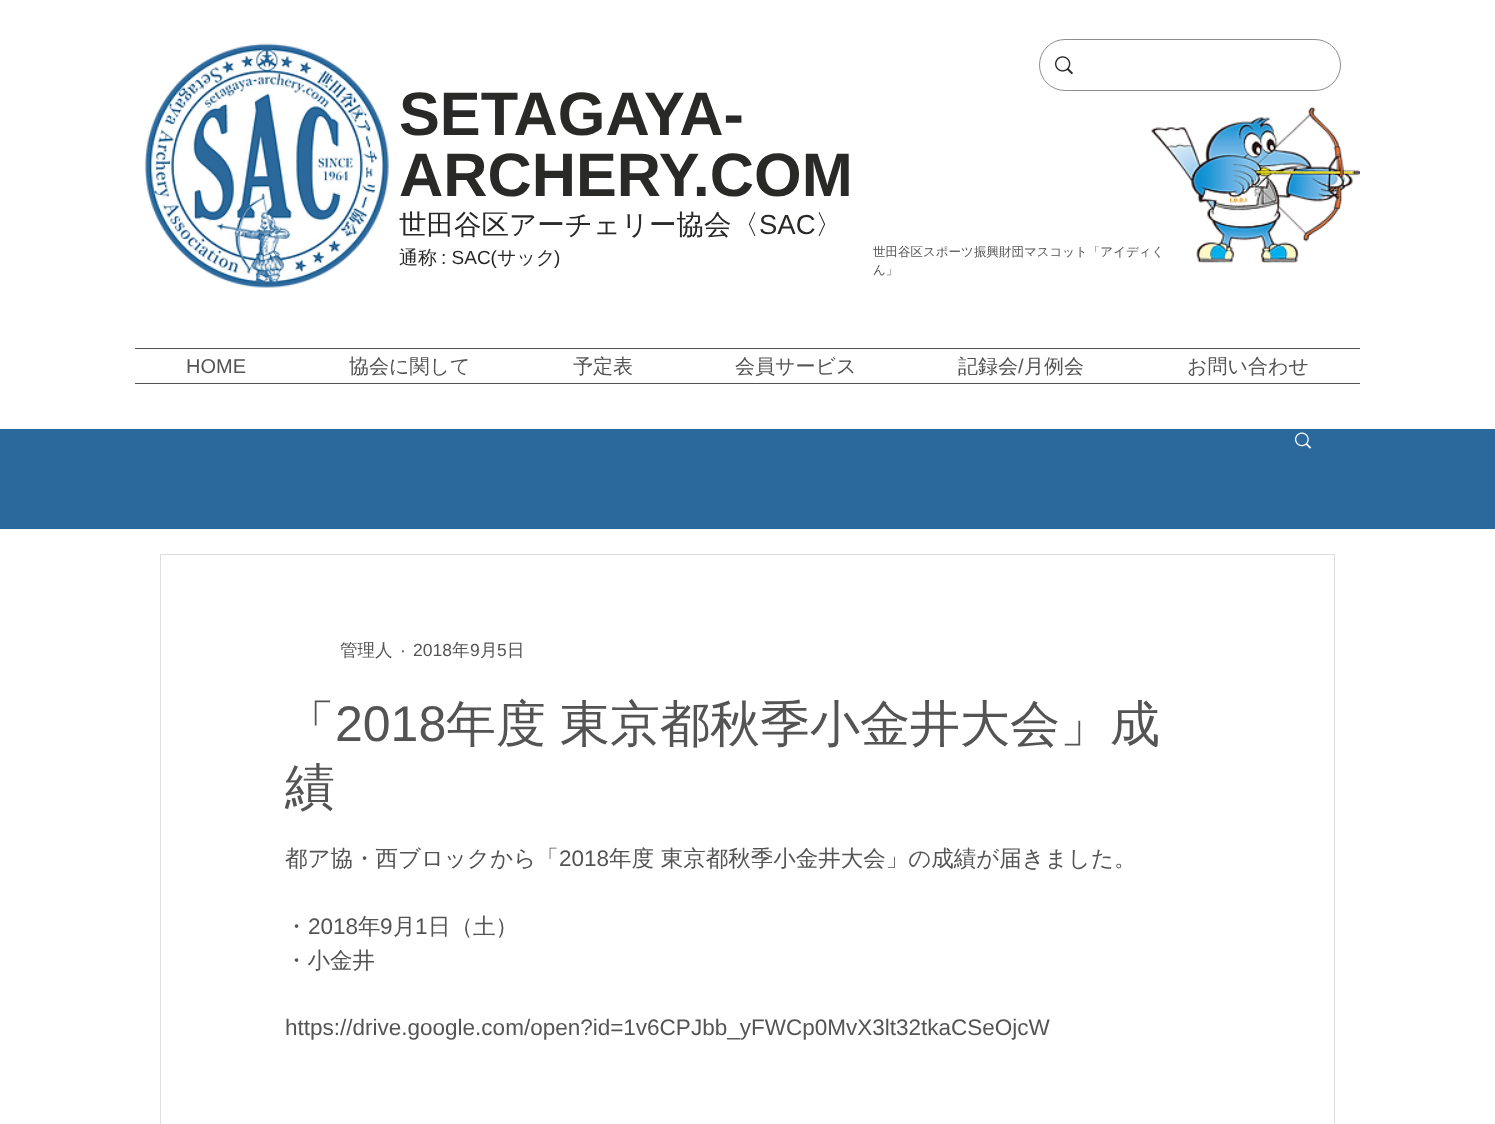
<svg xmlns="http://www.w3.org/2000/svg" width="1495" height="1124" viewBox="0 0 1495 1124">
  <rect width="100%" height="100%" fill="#ffffff"/>
  <image x="144" y="43" width="245" height="245" href="img1.png"/>
  <text x="399" y="135" font-family="Liberation Sans" font-size="61.25" font-weight="bold" fill="#292928">SETAGAYA-</text>
  <text x="399" y="196" font-family="Liberation Sans" font-size="61.25" font-weight="bold" fill="#292928">ARCHERY.COM</text>
  <text x="399" y="234" font-family="WenQuanYi Zen Hei" font-size="27.5" font-weight="500" fill="#292928">世田谷区アーチェリー協会〈</text>
  <text x="759" y="234" font-family="Liberation Sans" font-size="27.5" fill="#292928">SAC</text>
  <text x="815" y="234" font-family="WenQuanYi Zen Hei" font-size="27.5" font-weight="500" fill="#292928">〉</text>
  <rect x="1039.5" y="39.5" width="301" height="51" rx="25.5" fill="none" stroke="#8e8e8d"/>
  <image x="1055" y="56" width="18" height="18" href="img2.png"/>
  <text x="399" y="264" font-family="WenQuanYi Zen Hei" font-size="19" font-weight="500" fill="#292928">通称</text>
  <text x="441" y="264" font-family="Liberation Sans" font-size="19" fill="#292928">: SAC(</text>
  <text x="497" y="264" font-family="WenQuanYi Zen Hei" font-size="19" font-weight="500" fill="#292928">サック</text>
  <text x="554" y="264" font-family="Liberation Sans" font-size="19" fill="#292928">)</text>
  <image x="1151" y="107" width="209" height="156" href="img3.png"/>
  <text x="873" y="256" font-family="WenQuanYi Zen Hei" font-size="12.5" font-weight="500" fill="#545454">世田谷区スポーツ振興財団マスコット「アイディく</text>
  <text x="873" y="274" font-family="WenQuanYi Zen Hei" font-size="12.5" font-weight="500" fill="#545454">ん」</text>
  <rect x="135" y="348" width="1225" height="1" fill="#535351"/>
  <rect x="135" y="383" width="1225" height="1" fill="#535351"/>
  <text x="186" y="373" font-family="Liberation Sans" font-size="20" fill="#545454">HOME</text>
  <text x="349" y="373" font-family="WenQuanYi Zen Hei" font-size="20" font-weight="500" fill="#545454">協会に関して</text>
  <text x="573" y="373" font-family="WenQuanYi Zen Hei" font-size="20" font-weight="500" fill="#545454">予定表</text>
  <text x="735" y="373" font-family="WenQuanYi Zen Hei" font-size="20" font-weight="500" fill="#545454">会員サービス</text>
  <text x="958" y="373" font-family="WenQuanYi Zen Hei" font-size="20" font-weight="500" fill="#545454">記録会</text>
  <text x="1018" y="373" font-family="Liberation Sans" font-size="20" fill="#545454">/</text>
  <text x="1024" y="373" font-family="WenQuanYi Zen Hei" font-size="20" font-weight="500" fill="#545454">月例会</text>
  <text x="1187" y="373" font-family="WenQuanYi Zen Hei" font-size="20" font-weight="500" fill="#545454">お問い合わせ</text>
  <rect x="0" y="429" width="1495" height="100" fill="#2b689c"/>
  <image x="1295" y="432" width="17" height="17" href="img4.png"/>
  <rect x="160.5" y="554.5" width="1174" height="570" fill="none" stroke="#dedede"/>
  <text x="340" y="656" font-family="WenQuanYi Zen Hei" font-size="17.5" font-weight="500" fill="#545454">管理人</text>
  <text x="400" y="656" font-family="Liberation Sans" font-size="17.5" fill="#545454">·</text>
  <text x="413" y="656" font-family="Liberation Sans" font-size="17.5" fill="#545454">2018</text>
  <text x="452" y="656" font-family="WenQuanYi Zen Hei" font-size="17.5" font-weight="500" fill="#545454">年</text>
  <text x="470" y="656" font-family="Liberation Sans" font-size="17.5" fill="#545454">9</text>
  <text x="480" y="656" font-family="WenQuanYi Zen Hei" font-size="17.5" font-weight="500" fill="#545454">月</text>
  <text x="497" y="656" font-family="Liberation Sans" font-size="17.5" fill="#545454">5</text>
  <text x="507" y="656" font-family="WenQuanYi Zen Hei" font-size="17.5" font-weight="500" fill="#545454">日</text>
  <text x="285" y="741" font-family="WenQuanYi Zen Hei" font-size="50" font-weight="500" fill="#545454">「</text>
  <text x="335" y="741" font-family="Liberation Sans" font-size="50" fill="#545454">2018</text>
  <text x="446" y="741" word-spacing="-1" font-family="WenQuanYi Zen Hei" font-size="50" font-weight="500" fill="#545454">年度 東京都秋季小金井大会」成</text>
  <text x="285" y="804" font-family="WenQuanYi Zen Hei" font-size="50" font-weight="500" fill="#545454">績</text>
  <text x="285" y="866" font-family="WenQuanYi Zen Hei" font-size="22.5" font-weight="500" fill="#545454">都ア協・西ブロックから「</text>
  <text x="559" y="866" font-family="Liberation Sans" font-size="22.5" fill="#545454">2018</text>
  <text x="609" y="866" font-family="WenQuanYi Zen Hei" font-size="22.5" font-weight="500" fill="#545454">年度 東京都秋季小金井大会」の成績が届きました。</text>
  <text x="285" y="934" font-family="WenQuanYi Zen Hei" font-size="22.5" font-weight="500" fill="#545454">・</text>
  <text x="308" y="934" font-family="Liberation Sans" font-size="22.5" fill="#545454">2018</text>
  <text x="358" y="934" font-family="WenQuanYi Zen Hei" font-size="22.5" font-weight="500" fill="#545454">年</text>
  <text x="380" y="934" font-family="Liberation Sans" font-size="22.5" fill="#545454">9</text>
  <text x="393" y="934" font-family="WenQuanYi Zen Hei" font-size="22.5" font-weight="500" fill="#545454">月</text>
  <text x="415" y="934" font-family="Liberation Sans" font-size="22.5" fill="#545454">1</text>
  <text x="428" y="934" font-family="WenQuanYi Zen Hei" font-size="22.5" font-weight="500" fill="#545454">日（土）</text>
  <text x="285" y="968" font-family="WenQuanYi Zen Hei" font-size="22.5" font-weight="500" fill="#545454">・小金井</text>
  <text x="285" y="1035" font-family="Liberation Sans" font-size="22.5" fill="#545454">https://drive.google.com/open?id=1v6CPJbb_yFWCp0MvX3lt32tkaCSeOjcW</text>
</svg>
